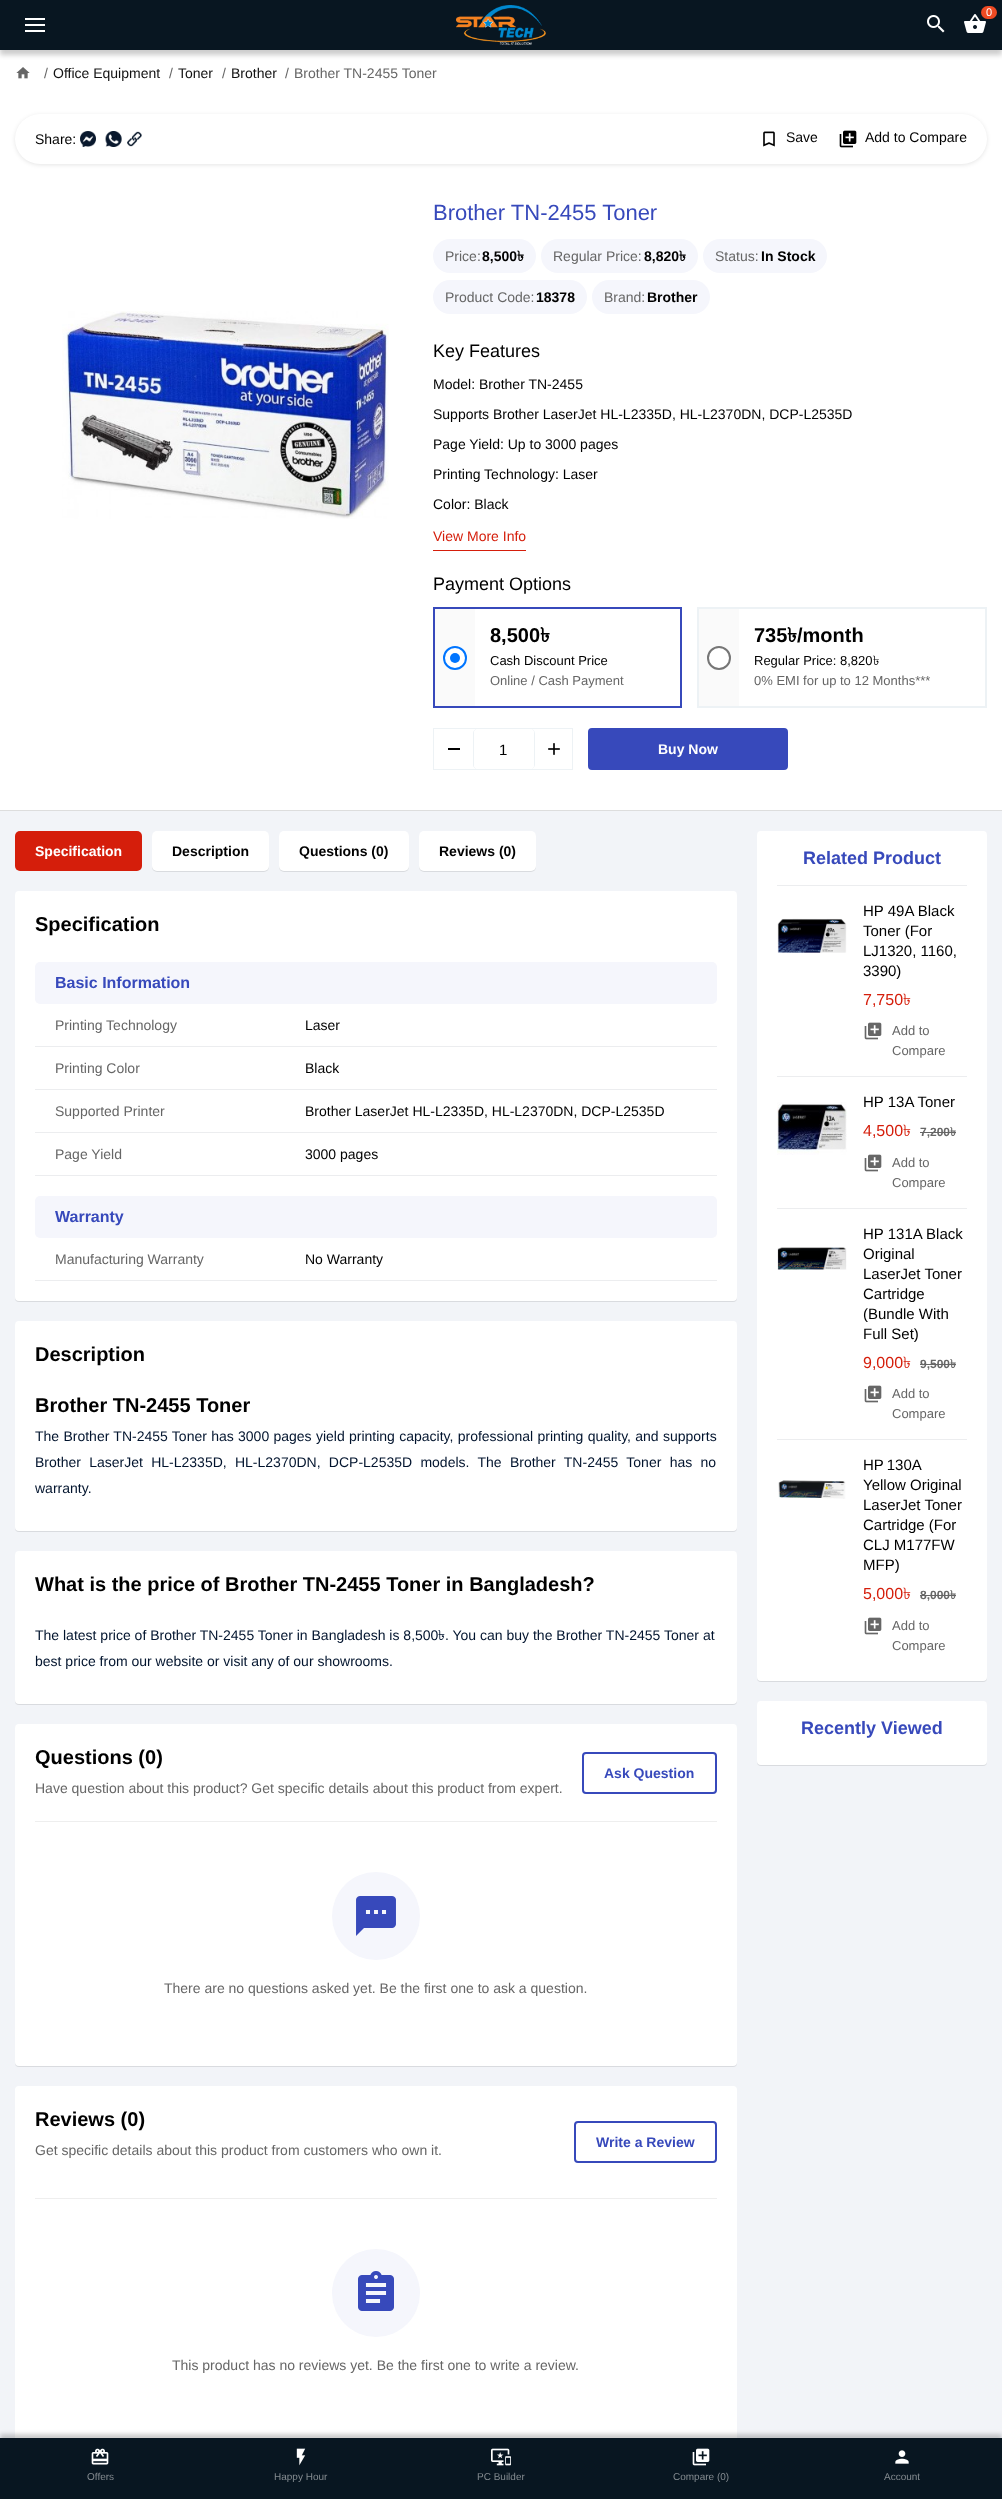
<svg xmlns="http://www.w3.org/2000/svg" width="1002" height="2499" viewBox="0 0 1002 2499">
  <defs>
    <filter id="blur1" x="-50%" y="-200%" width="200%" height="500%"><feGaussianBlur stdDeviation="2.5"/></filter>
    <filter id="blur2" x="-50%" y="-200%" width="200%" height="500%"><feGaussianBlur stdDeviation="2"/></filter>
    <filter id="blur3" x="-50%" y="-200%" width="200%" height="500%"><feGaussianBlur stdDeviation="0.5"/></filter>
  </defs>
  <rect width="100%" height="100%" fill="#ffffff"/>
  <rect x="0" y="5" width="1002" height="50" fill="#000000" fill-opacity="0.2" filter="url(#blur1)"/>
  <rect x="0" y="0" width="1002" height="50" fill="#081621"/>
  <image x="456" y="5" width="90" height="40" href="img1.png"/>
  <image x="964" y="14" width="22" height="19" href="img2.png"/>
  <rect x="981" y="6" width="16" height="13" rx="6.5" fill="#ef4a23"/>
  <text x="986" y="16" font-family="Liberation Sans" font-size="11" fill="#ffffff">0</text>
  <image x="927" y="15" width="18" height="18" href="img3.png"/>
  <rect x="25" y="18" width="20" height="2" fill="#ffffff"/>
  <rect x="25" y="24" width="20" height="2" fill="#ffffff"/>
  <rect x="25" y="30" width="20" height="2" fill="#ffffff"/>
  <rect x="0" y="811" width="1002" height="1627" fill="#f2f4f8"/>
  <rect x="15" y="2086" width="722" height="357" rx="4" fill="#ffffff"/>
  <rect x="0" y="2434" width="1002" height="61" fill="#000000" fill-opacity="0.2" filter="url(#blur2)"/>
  <rect x="0" y="2438" width="1002" height="61" fill="#081621"/>
  <image x="91" y="2448" width="18" height="17" href="img4.png"/>
  <text x="87" y="2480" font-family="Liberation Sans" font-size="10" fill="#848b90">Offers</text>
  <image x="296" y="2448" width="10" height="18" href="img5.png"/>
  <text x="274" y="2480" font-family="Liberation Sans" font-size="10" fill="#848b90">Happy Hour</text>
  <image x="491" y="2448" width="20" height="18" href="img6.png"/>
  <text x="477" y="2480" font-family="Liberation Sans" font-size="10" fill="#848b90">PC Builder</text>
  <image x="692" y="2448" width="18" height="18" href="img7.png"/>
  <text x="673" y="2480" font-family="Liberation Sans" font-size="10" fill="#848b90">Compare (0)</text>
  <image x="895" y="2450" width="14" height="14" href="img8.png"/>
  <text x="884" y="2480" font-family="Liberation Sans" font-size="10" fill="#848b90">Account</text>
  <image x="16" y="67" width="14" height="12" href="img9.png"/>
  <text x="44" y="78" font-family="Liberation Sans" font-size="14" fill="#666666">/</text>
  <text x="53" y="78" font-family="Liberation Sans" font-size="14" fill="#111111">Office Equipment</text>
  <text x="169" y="78" font-family="Liberation Sans" font-size="14" fill="#666666">/</text>
  <text x="178" y="78" font-family="Liberation Sans" font-size="14" fill="#111111">Toner</text>
  <text x="222" y="78" font-family="Liberation Sans" font-size="14" fill="#666666">/</text>
  <text x="231" y="78" font-family="Liberation Sans" font-size="14" fill="#111111">Brother</text>
  <text x="285" y="78" font-family="Liberation Sans" font-size="14" fill="#666666">/</text>
  <text x="294" y="78" font-family="Liberation Sans" font-size="14" fill="#666666">Brother TN-2455 Toner</text>
  <rect x="15" y="115" width="972" height="50" rx="25" fill="#000000" fill-opacity="0.1" filter="url(#blur2)"/>
  <rect x="15" y="114" width="972" height="50" rx="25" fill="#ffffff"/>
  <text x="35" y="144" font-family="Liberation Sans" font-size="14" fill="#000000">Share:</text>
  <image x="80" y="131" width="16" height="16" href="img10.png"/>
  <image x="105" y="131" width="17" height="16" href="img11.png"/>
  <image x="127" y="131" width="15" height="16" href="img12.png"/>
  <image x="763" y="131" width="12" height="16" href="img13.png"/>
  <text x="786" y="142" font-family="Liberation Sans" font-size="14" fill="#000000">Save</text>
  <image x="839" y="130" width="18" height="18" href="img14.png"/>
  <text x="865" y="142" font-family="Liberation Sans" font-size="14" fill="#000000">Add to Compare</text>
  <image x="62" y="311" width="327" height="208" href="img15.png"/>
  <text x="433" y="220" font-family="Liberation Sans" font-size="22" fill="#3749bb">Brother TN-2455 Toner</text>
  <rect x="433" y="239" width="103" height="34" rx="17" fill="#f5f6fc"/>
  <text x="445" y="261" font-family="Liberation Sans" font-size="14" fill="#666666">Price:</text>
  <text x="482" y="261" font-family="Liberation Sans" font-size="14" font-weight="bold" fill="#000000">8,500</text>
  <text x="517" y="261" font-family="Lohit Bengali" font-size="14" font-weight="bold" fill="#000000">৳</text>
  <rect x="541" y="239" width="157" height="34" rx="17" fill="#f5f6fc"/>
  <text x="553" y="261" font-family="Liberation Sans" font-size="14" fill="#666666">Regular Price:</text>
  <text x="644" y="261" font-family="Liberation Sans" font-size="14" font-weight="bold" fill="#000000">8,820</text>
  <text x="679" y="261" font-family="Lohit Bengali" font-size="14" font-weight="bold" fill="#000000">৳</text>
  <rect x="703" y="239" width="124" height="34" rx="17" fill="#f5f6fc"/>
  <text x="715" y="261" font-family="Liberation Sans" font-size="14" fill="#666666">Status:</text>
  <text x="761" y="261" font-family="Liberation Sans" font-size="14" font-weight="bold" fill="#000000">In Stock</text>
  <rect x="433" y="280" width="154" height="34" rx="17" fill="#f5f6fc"/>
  <text x="445" y="302" font-family="Liberation Sans" font-size="14" fill="#666666">Product Code:</text>
  <text x="536" y="302" font-family="Liberation Sans" font-size="14" font-weight="bold" fill="#000000">18378</text>
  <rect x="592" y="280" width="118" height="34" rx="17" fill="#f5f6fc"/>
  <text x="604" y="302" font-family="Liberation Sans" font-size="14" fill="#666666">Brand:</text>
  <text x="647" y="302" font-family="Liberation Sans" font-size="14" font-weight="bold" fill="#000000">Brother</text>
  <text x="433" y="357" font-family="Liberation Sans" font-size="18" fill="#000000">Key Features</text>
  <text x="433" y="389" font-family="Liberation Sans" font-size="14" fill="#000000">Model: Brother TN-2455</text>
  <text x="433" y="419" font-family="Liberation Sans" font-size="14" fill="#000000">Supports Brother LaserJet HL-L2335D, HL-L2370DN, DCP-L2535D</text>
  <text x="433" y="449" font-family="Liberation Sans" font-size="14" fill="#000000">Page Yield: Up to 3000 pages</text>
  <text x="433" y="479" font-family="Liberation Sans" font-size="14" fill="#000000">Printing Technology: Laser</text>
  <text x="433" y="509" font-family="Liberation Sans" font-size="14" fill="#000000">Color: Black</text>
  <rect x="433" y="550" width="93" height="1" fill="#d51e0b"/>
  <text x="433" y="541" font-family="Liberation Sans" font-size="14" fill="#d51e0b">View More Info</text>
  <text x="433" y="590" font-family="Liberation Sans" font-size="18" fill="#000000">Payment Options</text>
  <rect x="435" y="609" width="40" height="97" fill="#fafafa"/>
  <rect x="434" y="608" width="247" height="99" fill="none" stroke="#3749bb" stroke-width="2"/>
  <text x="490" y="642" font-family="Liberation Sans" font-size="20" font-weight="bold" fill="#000000">8,500</text>
  <text x="540" y="642" font-family="Lohit Bengali" font-size="20" font-weight="bold" fill="#000000">৳</text>
  <circle cx="455" cy="658" r="11" fill="#ffffff" stroke="#0075ff" stroke-width="2"/>
  <circle cx="455" cy="658" r="5" fill="#0075ff"/>
  <text x="490" y="665" font-family="Liberation Sans" font-size="13" fill="#000000">Cash Discount Price</text>
  <text x="490" y="685" font-family="Liberation Sans" font-size="13" fill="#666666">Online / Cash Payment</text>
  <rect x="699" y="609" width="40" height="97" fill="#fafafa"/>
  <rect x="698" y="608" width="288" height="99" fill="none" stroke="#edf2f5" stroke-width="2"/>
  <text x="754" y="642" font-family="Liberation Sans" font-size="20" font-weight="bold" fill="#000000">735</text>
  <text x="787" y="642" font-family="Lohit Bengali" font-size="20" font-weight="bold" fill="#000000">৳</text>
  <text x="797" y="642" font-family="Liberation Sans" font-size="20" font-weight="bold" fill="#000000">/month</text>
  <circle cx="719" cy="658" r="11" fill="#ffffff" stroke="#767676" stroke-width="2"/>
  <text x="754" y="665" font-family="Liberation Sans" font-size="13" fill="#000000">Regular Price: 8,820</text>
  <text x="873" y="665" font-family="Lohit Bengali" font-size="13" fill="#000000">৳</text>
  <text x="754" y="685" font-family="Liberation Sans" font-size="13" fill="#666666">0% EMI for up to 12 Months***</text>
  <rect x="433.5" y="728.5" width="139" height="41" fill="none" stroke="#edf2f5"/>
  <rect x="448" y="748" width="12" height="2" fill="#000000"/>
  <path d="M477 729C475 729 473 731 473 733V765C473 767 475 769 477 769H478C476 769 474 767 474 765V733C474 731 476 729 478 729ZM530 769C536 769 535 764 535 760V738C535 734 536 729 530 729C532 729 534 731 534 733V765C534 767 532 769 530 769Z" fill="#edf2f5"/>
  <rect x="474" y="729" width="60" height="40" rx="4" fill="#ffffff"/>
  <text x="499" y="755" font-family="Liberation Sans" font-size="15" fill="#000000">1</text>
  <image x="548" y="743" width="12" height="12" href="img16.png"/>
  <rect x="589" y="729" width="198" height="40" rx="3" fill="#3749bb" stroke="#3749bb" stroke-width="2"/>
  <text x="658" y="754" font-family="Liberation Sans" font-size="14" font-weight="bold" fill="#ffffff">Buy Now</text>
  <rect x="0" y="810" width="1002" height="1" fill="#dddddd"/>
  <rect x="15" y="831" width="127" height="40" rx="5" fill="#d51e0b"/>
  <text x="35" y="856" font-family="Liberation Sans" font-size="14" font-weight="bold" fill="#ffffff">Specification</text>
  <rect x="152" y="832" width="117" height="40" rx="5" fill="#000000" fill-opacity="0.1" filter="url(#blur3)"/>
  <rect x="152" y="831" width="117" height="40" rx="5" fill="#ffffff"/>
  <text x="172" y="856" font-family="Liberation Sans" font-size="14" font-weight="bold" fill="#000000">Description</text>
  <rect x="279" y="832" width="130" height="40" rx="5" fill="#000000" fill-opacity="0.1" filter="url(#blur3)"/>
  <rect x="279" y="831" width="130" height="40" rx="5" fill="#ffffff"/>
  <text x="299" y="856" font-family="Liberation Sans" font-size="14" font-weight="bold" fill="#000000">Questions (0)</text>
  <rect x="419" y="832" width="117" height="40" rx="5" fill="#000000" fill-opacity="0.1" filter="url(#blur3)"/>
  <rect x="419" y="831" width="117" height="40" rx="5" fill="#ffffff"/>
  <text x="439" y="856" font-family="Liberation Sans" font-size="14" font-weight="bold" fill="#000000">Reviews (0)</text>
  <rect x="15" y="892" width="722" height="410" rx="4" fill="#000000" fill-opacity="0.1" filter="url(#blur3)"/>
  <rect x="15" y="891" width="722" height="410" rx="4" fill="#ffffff"/>
  <text x="35" y="931" font-family="Liberation Sans" font-size="20" font-weight="bold" fill="#000000">Specification</text>
  <rect x="35" y="962" width="682" height="42" rx="5" fill="#f5f6fc"/>
  <text x="55" y="988" font-family="Liberation Sans" font-size="16" font-weight="bold" fill="#3749bb">Basic Information</text>
  <rect x="35" y="1046" width="682" height="1" fill="#ecedef"/>
  <text x="55" y="1030" font-family="Liberation Sans" font-size="14" fill="#666666">Printing Technology</text>
  <text x="305" y="1030" font-family="Liberation Sans" font-size="14" fill="#000000">Laser</text>
  <rect x="35" y="1089" width="682" height="1" fill="#ecedef"/>
  <text x="55" y="1073" font-family="Liberation Sans" font-size="14" fill="#666666">Printing Color</text>
  <text x="305" y="1073" font-family="Liberation Sans" font-size="14" fill="#000000">Black</text>
  <rect x="35" y="1132" width="682" height="1" fill="#ecedef"/>
  <text x="55" y="1116" font-family="Liberation Sans" font-size="14" fill="#666666">Supported Printer</text>
  <text x="305" y="1116" font-family="Liberation Sans" font-size="14" fill="#000000">Brother LaserJet HL-L2335D, HL-L2370DN, DCP-L2535D</text>
  <rect x="35" y="1175" width="682" height="1" fill="#ecedef"/>
  <text x="55" y="1159" font-family="Liberation Sans" font-size="14" fill="#666666">Page Yield</text>
  <text x="305" y="1159" font-family="Liberation Sans" font-size="14" fill="#000000">3000 pages</text>
  <rect x="35" y="1196" width="682" height="42" rx="5" fill="#f5f6fc"/>
  <text x="55" y="1222" font-family="Liberation Sans" font-size="16" font-weight="bold" fill="#3749bb">Warranty</text>
  <rect x="35" y="1280" width="682" height="1" fill="#ecedef"/>
  <text x="55" y="1264" font-family="Liberation Sans" font-size="14" fill="#666666">Manufacturing Warranty</text>
  <text x="305" y="1264" font-family="Liberation Sans" font-size="14" fill="#000000">No Warranty</text>
  <rect x="15" y="1322" width="722" height="210" rx="4" fill="#000000" fill-opacity="0.1" filter="url(#blur3)"/>
  <rect x="15" y="1321" width="722" height="210" rx="4" fill="#ffffff"/>
  <text x="35" y="1361" font-family="Liberation Sans" font-size="20" font-weight="bold" fill="#000000">Description</text>
  <text x="35" y="1412" font-family="Liberation Sans" font-size="20" font-weight="bold" fill="#000000">Brother TN-2455 Toner</text>
  <text x="35" y="1441" word-spacing="0.4" font-family="Liberation Sans" font-size="14" fill="#01132d">The Brother TN-2455 Toner has 3000 pages yield printing capacity, professional printing quality, and supports</text>
  <text x="35" y="1467" word-spacing="4.4" font-family="Liberation Sans" font-size="14" fill="#01132d">Brother LaserJet HL-L2335D, HL-L2370DN, DCP-L2535D models. The Brother TN-2455 Toner has no</text>
  <text x="35" y="1493" font-family="Liberation Sans" font-size="14" fill="#01132d">warranty.</text>
  <rect x="15" y="1552" width="722" height="153" rx="4" fill="#000000" fill-opacity="0.1" filter="url(#blur3)"/>
  <rect x="15" y="1551" width="722" height="153" rx="4" fill="#ffffff"/>
  <text x="35" y="1591" font-family="Liberation Sans" font-size="20" font-weight="bold" fill="#000000">What is the price of Brother TN-2455 Toner in Bangladesh?</text>
  <text x="35" y="1640" font-family="Liberation Sans" font-size="14" fill="#01132d">The latest price of Brother TN-2455 Toner in Bangladesh is 8,500</text>
  <text x="438" y="1640" font-family="Lohit Bengali" font-size="14" fill="#01132d">৳</text>
  <text x="445" y="1640" font-family="Liberation Sans" font-size="14" fill="#01132d">. You can buy the Brother TN-2455 Toner at</text>
  <text x="35" y="1666" font-family="Liberation Sans" font-size="14" fill="#01132d">best price from our website or visit any of our showrooms.</text>
  <rect x="15" y="1725" width="722" height="342" rx="4" fill="#000000" fill-opacity="0.1" filter="url(#blur3)"/>
  <rect x="15" y="1724" width="722" height="342" rx="4" fill="#ffffff"/>
  <rect x="35" y="1821" width="682" height="1" fill="#eeeeee"/>
  <text x="35" y="1764" font-family="Liberation Sans" font-size="20" font-weight="bold" fill="#000000">Questions (0)</text>
  <text x="35" y="1793" font-family="Liberation Sans" font-size="14" fill="#666666">Have question about this product? Get specific details about this product from expert.</text>
  <rect x="583" y="1753" width="133" height="40" rx="3" fill="none" stroke="#3749bb" stroke-width="2"/>
  <text x="604" y="1778" font-family="Liberation Sans" font-size="14" font-weight="bold" fill="#3749bb">Ask Question</text>
  <circle cx="376" cy="1916" r="44" fill="#f5f6fc"/>
  <image x="356" y="1896" width="40" height="40" href="img17.png"/>
  <text x="164" y="1993" font-family="Liberation Sans" font-size="14" fill="#666666">There are no questions asked yet. Be the first one to ask a question.</text>
  <rect x="35" y="2198" width="682" height="1" fill="#eeeeee"/>
  <text x="35" y="2126" font-family="Liberation Sans" font-size="20" font-weight="bold" fill="#000000">Reviews (0)</text>
  <text x="35" y="2155" font-family="Liberation Sans" font-size="14" fill="#666666">Get specific details about this product from customers who own it.</text>
  <rect x="575" y="2122" width="141" height="40" rx="3" fill="none" stroke="#3749bb" stroke-width="2"/>
  <text x="596" y="2147" font-family="Liberation Sans" font-size="14" font-weight="bold" fill="#3749bb">Write a Review</text>
  <circle cx="376" cy="2293" r="44" fill="#f5f6fc"/>
  <image x="358" y="2271" width="36" height="40" href="img18.png"/>
  <text x="172" y="2370" font-family="Liberation Sans" font-size="14" fill="#666666">This product has no reviews yet. Be the first one to write a review.</text>
  <rect x="757" y="832" width="230" height="850" rx="4" fill="#000000" fill-opacity="0.1" filter="url(#blur3)"/>
  <rect x="757" y="831" width="230" height="850" rx="4" fill="#ffffff"/>
  <text x="803" y="864" font-family="Liberation Sans" font-size="18" font-weight="bold" fill="#3749bb">Related Product</text>
  <rect x="777" y="885" width="190" height="1" fill="#ecedef"/>
  <image x="777" y="918" width="70" height="35" href="img19.png"/>
  <text x="863" y="916" font-family="Liberation Sans" font-size="15" fill="#000000">HP 49A Black</text>
  <text x="863" y="936" font-family="Liberation Sans" font-size="15" fill="#000000">Toner (For</text>
  <text x="863" y="956" font-family="Liberation Sans" font-size="15" fill="#000000">LJ1320, 1160,</text>
  <text x="863" y="976" font-family="Liberation Sans" font-size="15" fill="#000000">3390)</text>
  <text x="863" y="1005" font-family="Liberation Sans" font-size="16" fill="#d51e0b">7,750</text>
  <text x="903" y="1005" font-family="Lohit Bengali" font-size="16" fill="#d51e0b">৳</text>
  <image x="864" y="1022" width="18" height="18" href="img20.png"/>
  <text x="892" y="1035" font-family="Liberation Sans" font-size="13" fill="#666666">Add to</text>
  <text x="892" y="1055" font-family="Liberation Sans" font-size="13" fill="#666666">Compare</text>
  <rect x="777" y="1076" width="190" height="1" fill="#ecedef"/>
  <image x="777" y="1102" width="70" height="53" href="img21.png"/>
  <text x="863" y="1107" font-family="Liberation Sans" font-size="15" fill="#000000">HP 13A Toner</text>
  <text x="863" y="1136" font-family="Liberation Sans" font-size="16" fill="#d51e0b">4,500</text>
  <text x="903" y="1136" font-family="Lohit Bengali" font-size="16" fill="#d51e0b">৳</text>
  <text x="920" y="1136" font-family="Liberation Sans" font-size="12" font-weight="bold" fill="#666666">7,200</text>
  <rect x="920" y="1132" width="36" height="1" fill="#666666"/>
  <text x="950" y="1136" font-family="Lohit Bengali" font-size="12" font-weight="bold" fill="#666666">৳</text>
  <image x="864" y="1154" width="18" height="18" href="img20.png"/>
  <text x="892" y="1167" font-family="Liberation Sans" font-size="13" fill="#666666">Add to</text>
  <text x="892" y="1187" font-family="Liberation Sans" font-size="13" fill="#666666">Compare</text>
  <rect x="777" y="1208" width="190" height="1" fill="#ecedef"/>
  <image x="777" y="1247" width="70" height="23" href="img22.png"/>
  <text x="863" y="1239" font-family="Liberation Sans" font-size="15" fill="#000000">HP 131A Black</text>
  <text x="863" y="1259" font-family="Liberation Sans" font-size="15" fill="#000000">Original</text>
  <text x="863" y="1279" font-family="Liberation Sans" font-size="15" fill="#000000">LaserJet Toner</text>
  <text x="863" y="1299" font-family="Liberation Sans" font-size="15" fill="#000000">Cartridge</text>
  <text x="863" y="1319" font-family="Liberation Sans" font-size="15" fill="#000000">(Bundle With</text>
  <text x="863" y="1339" font-family="Liberation Sans" font-size="15" fill="#000000">Full Set)</text>
  <text x="863" y="1368" font-family="Liberation Sans" font-size="16" fill="#d51e0b">9,000</text>
  <text x="903" y="1368" font-family="Lohit Bengali" font-size="16" fill="#d51e0b">৳</text>
  <text x="920" y="1368" font-family="Liberation Sans" font-size="12" font-weight="bold" fill="#666666">9,500</text>
  <rect x="920" y="1364" width="36" height="1" fill="#666666"/>
  <text x="950" y="1368" font-family="Lohit Bengali" font-size="12" font-weight="bold" fill="#666666">৳</text>
  <image x="864" y="1385" width="18" height="18" href="img20.png"/>
  <text x="892" y="1398" font-family="Liberation Sans" font-size="13" fill="#666666">Add to</text>
  <text x="892" y="1418" font-family="Liberation Sans" font-size="13" fill="#666666">Compare</text>
  <rect x="777" y="1439" width="190" height="1" fill="#ecedef"/>
  <image x="778" y="1480" width="68" height="19" href="img23.png"/>
  <text x="863" y="1470" word-spacing="-1" font-family="Liberation Sans" font-size="15" fill="#000000">HP 130A</text>
  <text x="863" y="1490" font-family="Liberation Sans" font-size="15" fill="#000000">Yellow Original</text>
  <text x="863" y="1510" font-family="Liberation Sans" font-size="15" fill="#000000">LaserJet Toner</text>
  <text x="863" y="1530" font-family="Liberation Sans" font-size="15" fill="#000000">Cartridge (For</text>
  <text x="863" y="1550" font-family="Liberation Sans" font-size="15" fill="#000000">CLJ M177FW</text>
  <text x="863" y="1570" font-family="Liberation Sans" font-size="15" fill="#000000">MFP)</text>
  <text x="863" y="1599" font-family="Liberation Sans" font-size="16" fill="#d51e0b">5,000</text>
  <text x="903" y="1599" font-family="Lohit Bengali" font-size="16" fill="#d51e0b">৳</text>
  <text x="920" y="1599" font-family="Liberation Sans" font-size="12" font-weight="bold" fill="#666666">8,000</text>
  <rect x="920" y="1595" width="36" height="1" fill="#666666"/>
  <text x="950" y="1599" font-family="Lohit Bengali" font-size="12" font-weight="bold" fill="#666666">৳</text>
  <image x="864" y="1617" width="18" height="18" href="img20.png"/>
  <text x="892" y="1630" font-family="Liberation Sans" font-size="13" fill="#666666">Add to</text>
  <text x="892" y="1650" font-family="Liberation Sans" font-size="13" fill="#666666">Compare</text>
  <rect x="757" y="1702" width="230" height="64" rx="4" fill="#000000" fill-opacity="0.1" filter="url(#blur3)"/>
  <rect x="757" y="1701" width="230" height="64" rx="4" fill="#ffffff"/>
  <text x="801" y="1734" font-family="Liberation Sans" font-size="18" font-weight="bold" fill="#3749bb">Recently Viewed</text>
</svg>
